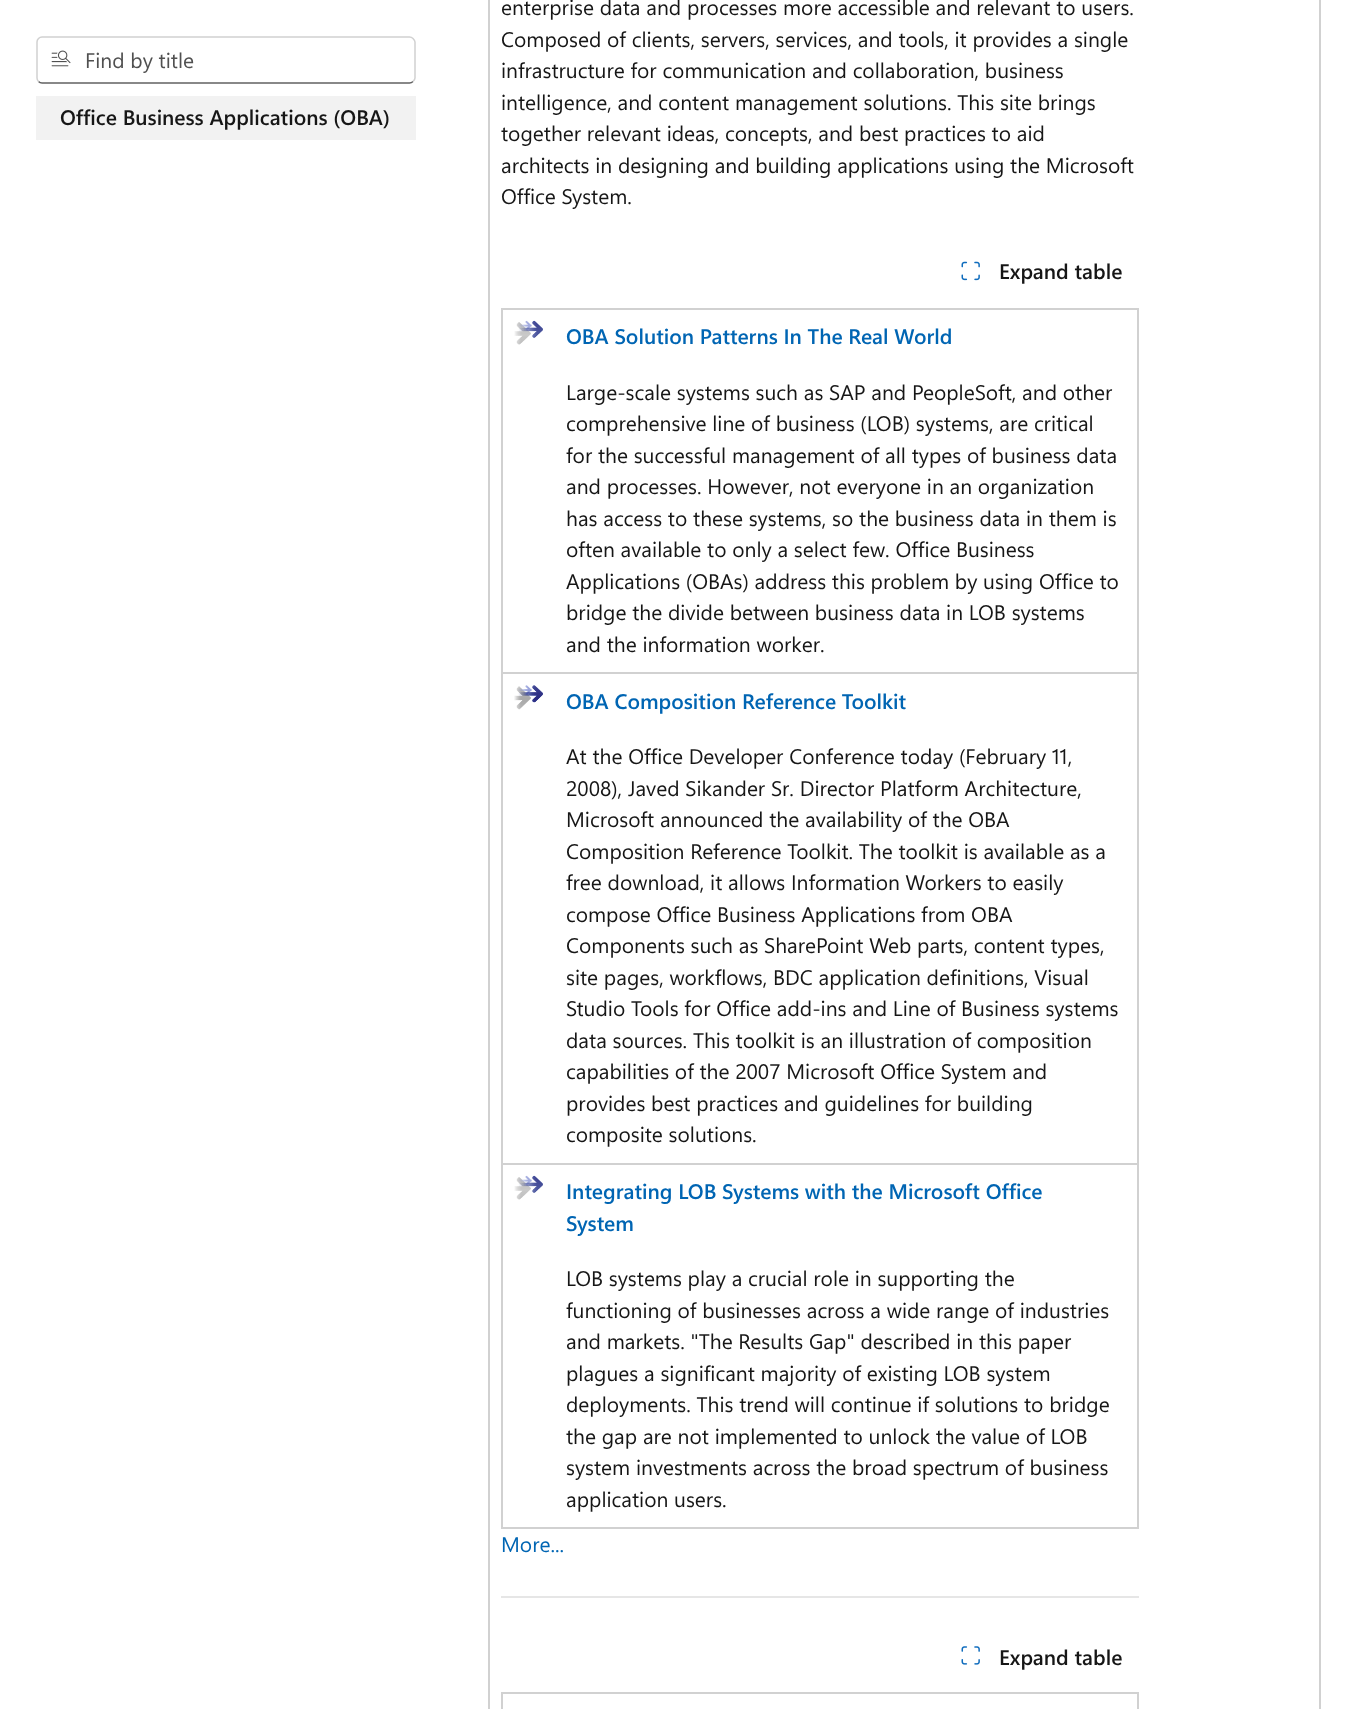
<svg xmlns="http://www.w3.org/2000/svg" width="1356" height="1709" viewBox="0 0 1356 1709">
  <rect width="100%" height="100%" fill="#ffffff"/>
  <path d="M413 81.5C412 82.5 411 83 409.5 83H42C40.5 83 39.5 82.5 38.5 81.5" fill="none" stroke="#616161" stroke-width="1.5"/>
  <path d="M38.5 81.5C37.5 80.5 37 79.5 37 78V42C37 40.5 37.5 39.5 38.5 38.5C39.5 37.5 40.5 37 42 37H409.5C411 37 412 37.5 413 38.5C414 39.5 415 40.5 415 42V78C415 79.5 414 80.5 413 81.5" fill="none" stroke="#d1d1d1" stroke-width="1.5"/>
  <image x="51" y="50" width="20" height="17" href="img1.png"/>
  <text x="85" y="68" font-family="Segoe UI" font-size="21" fill="#505050">Find by title</text>
  <rect x="36" y="96" width="380" height="44" fill="#f2f2f2"/>
  <text x="60" y="125" font-family="Segoe UI" font-size="21" font-weight="600" fill="#161616">Office Business Applications (OBA)</text>
  <rect x="1319" y="0" width="2" height="1709" fill="#d1d1d1"/>
  <rect x="488" y="0" width="2" height="1709" fill="#d1d1d1"/>
  <text x="501" y="15" font-family="Segoe UI" font-size="21" fill="#161616">enterprise data and processes more accessible and relevant to users.</text>
  <text x="501" y="47" font-family="Segoe UI" font-size="21" fill="#161616">Composed of clients, servers, services, and tools, it provides a single</text>
  <text x="501" y="78" font-family="Segoe UI" font-size="21" fill="#161616">infrastructure for communication and collaboration, business</text>
  <text x="501" y="110" font-family="Segoe UI" font-size="21" fill="#161616">intelligence, and content management solutions. This site brings</text>
  <text x="501" y="141" font-family="Segoe UI" font-size="21" fill="#161616">together relevant ideas, concepts, and best practices to aid</text>
  <text x="501" y="173" font-family="Segoe UI" font-size="21" fill="#161616">architects in designing and building applications using the Microsoft</text>
  <text x="501" y="204" font-family="Segoe UI" font-size="21" fill="#161616">Office System.</text>
  <image x="961" y="261" width="19" height="20" href="img2.png"/>
  <text x="999" y="279" font-family="Segoe UI" font-size="21" font-weight="600" fill="#161616">Expand table</text>
  <rect x="501" y="308" width="638" height="2" fill="#d1d1d1"/>
  <rect x="1137" y="308" width="2" height="1221" fill="#d1d1d1"/>
  <rect x="501" y="1527" width="638" height="2" fill="#d1d1d1"/>
  <rect x="501" y="308" width="2" height="1221" fill="#d1d1d1"/>
  <image x="514" y="320" width="29" height="25" href="img3.png"/>
  <text x="566" y="344" font-family="Segoe UI" font-size="21" font-weight="600" fill="#0065b3">OBA Solution Patterns In The Real World</text>
  <text x="566" y="400" font-family="Segoe UI" font-size="21" fill="#161616">Large-scale systems such as SAP and PeopleSoft, and other</text>
  <text x="566" y="431" font-family="Segoe UI" font-size="21" fill="#161616">comprehensive line of business (LOB) systems, are critical</text>
  <text x="566" y="463" font-family="Segoe UI" font-size="21" fill="#161616">for the successful management of all types of business data</text>
  <text x="566" y="494" font-family="Segoe UI" font-size="21" fill="#161616">and processes. However, not everyone in an organization</text>
  <text x="566" y="526" font-family="Segoe UI" font-size="21" fill="#161616">has access to these systems, so the business data in them is</text>
  <text x="566" y="557" font-family="Segoe UI" font-size="21" fill="#161616">often available to only a select few. Office Business</text>
  <text x="566" y="589" font-family="Segoe UI" font-size="21" fill="#161616">Applications (OBAs) address this problem by using Office to</text>
  <text x="566" y="620" font-family="Segoe UI" font-size="21" fill="#161616">bridge the divide between business data in LOB systems</text>
  <text x="566" y="652" font-family="Segoe UI" font-size="21" fill="#161616">and the information worker.</text>
  <image x="514" y="685" width="29" height="25" href="img4.png"/>
  <rect x="501" y="672" width="638" height="2" fill="#d1d1d1"/>
  <text x="566" y="709" font-family="Segoe UI" font-size="21" font-weight="600" fill="#0065b3">OBA Composition Reference Toolkit</text>
  <text x="566" y="764" font-family="Segoe UI" font-size="21" fill="#161616">At the Office Developer Conference today (February 11,</text>
  <text x="566" y="796" font-family="Segoe UI" font-size="21" fill="#161616">2008), Javed Sikander Sr. Director Platform Architecture,</text>
  <text x="566" y="827" font-family="Segoe UI" font-size="21" fill="#161616">Microsoft announced the availability of the OBA</text>
  <text x="566" y="859" font-family="Segoe UI" font-size="21" fill="#161616">Composition Reference Toolkit. The toolkit is available as a</text>
  <text x="566" y="890" font-family="Segoe UI" font-size="21" fill="#161616">free download, it allows Information Workers to easily</text>
  <text x="566" y="922" font-family="Segoe UI" font-size="21" fill="#161616">compose Office Business Applications from OBA</text>
  <text x="566" y="953" font-family="Segoe UI" font-size="21" fill="#161616">Components such as SharePoint Web parts, content types,</text>
  <text x="566" y="985" font-family="Segoe UI" font-size="21" fill="#161616">site pages, workflows, BDC application definitions, Visual</text>
  <text x="566" y="1016" font-family="Segoe UI" font-size="21" fill="#161616">Studio Tools for Office add-ins and Line of Business systems</text>
  <text x="566" y="1048" font-family="Segoe UI" font-size="21" fill="#161616">data sources. This toolkit is an illustration of composition</text>
  <text x="566" y="1079" font-family="Segoe UI" font-size="21" fill="#161616">capabilities of the 2007 Microsoft Office System and</text>
  <text x="566" y="1111" font-family="Segoe UI" font-size="21" fill="#161616">provides best practices and guidelines for building</text>
  <text x="566" y="1142" font-family="Segoe UI" font-size="21" fill="#161616">composite solutions.</text>
  <image x="514" y="1175" width="29" height="25" href="img3.png"/>
  <rect x="501" y="1163" width="638" height="2" fill="#d1d1d1"/>
  <text x="566" y="1199" font-family="Segoe UI" font-size="21" font-weight="600" fill="#0065b3">Integrating LOB Systems with the Microsoft Office</text>
  <text x="566" y="1231" font-family="Segoe UI" font-size="21" font-weight="600" fill="#0065b3">System</text>
  <text x="566" y="1286" font-family="Segoe UI" font-size="21" fill="#161616">LOB systems play a crucial role in supporting the</text>
  <text x="566" y="1318" font-family="Segoe UI" font-size="21" fill="#161616">functioning of businesses across a wide range of industries</text>
  <text x="566" y="1349" font-family="Segoe UI" font-size="21" fill="#161616">and markets. "The Results Gap" described in this paper</text>
  <text x="566" y="1381" font-family="Segoe UI" font-size="21" fill="#161616">plagues a significant majority of existing LOB system</text>
  <text x="566" y="1412" font-family="Segoe UI" font-size="21" fill="#161616">deployments. This trend will continue if solutions to bridge</text>
  <text x="566" y="1444" font-family="Segoe UI" font-size="21" fill="#161616">the gap are not implemented to unlock the value of LOB</text>
  <text x="566" y="1475" font-family="Segoe UI" font-size="21" fill="#161616">system investments across the broad spectrum of business</text>
  <text x="566" y="1507" font-family="Segoe UI" font-size="21" fill="#161616">application users.</text>
  <text x="501" y="1552" font-family="Segoe UI" font-size="21" fill="#0065b3">More...</text>
  <rect x="501" y="1596" width="638" height="2" fill="#e6e6e6"/>
  <image x="961" y="1646" width="19" height="19" href="img5.png"/>
  <text x="999" y="1665" font-family="Segoe UI" font-size="21" font-weight="600" fill="#161616">Expand table</text>
  <rect x="501" y="1692" width="638" height="2" fill="#d1d1d1"/>
  <rect x="1137" y="1692" width="2" height="17" fill="#d1d1d1"/>
  <rect x="501" y="1692" width="2" height="17" fill="#d1d1d1"/>
</svg>
